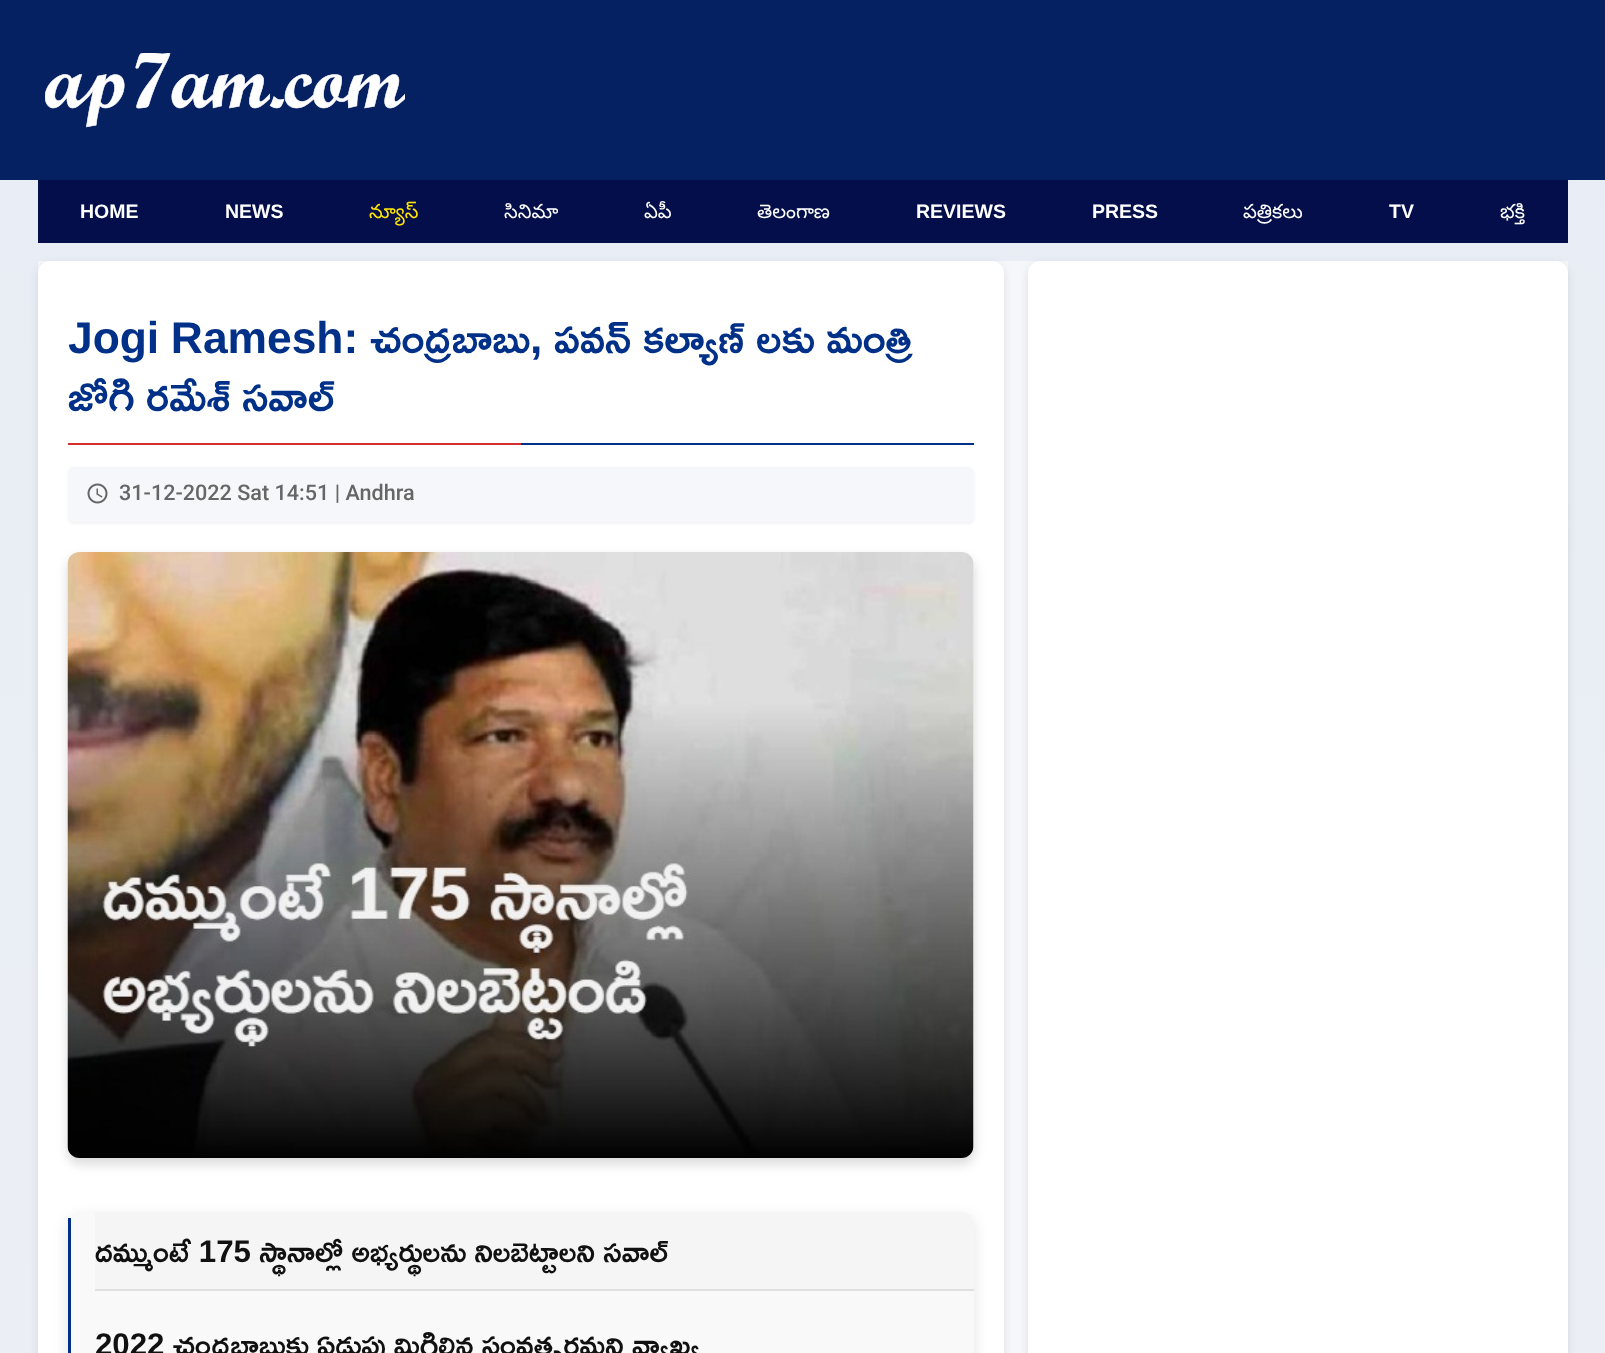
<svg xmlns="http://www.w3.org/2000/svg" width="1605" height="1353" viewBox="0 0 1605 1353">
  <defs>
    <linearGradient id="g1" gradientUnits="userSpaceOnUse" x1="802" y1="0" x2="803" y2="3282"><stop offset="0" stop-color="#e8edf5"/><stop offset="1" stop-color="#f0f2f5"/></linearGradient>
    <filter id="blur1" x="-50%" y="-200%" width="200%" height="500%"><feGaussianBlur stdDeviation="4"/></filter>
    <filter id="blur2" x="-50%" y="-200%" width="200%" height="500%"><feGaussianBlur stdDeviation="1.5"/></filter>
    <filter id="blur3" x="-50%" y="-200%" width="200%" height="500%"><feGaussianBlur stdDeviation="6"/></filter>
    <filter id="blur4" x="-50%" y="-200%" width="200%" height="500%"><feGaussianBlur stdDeviation="7.5"/></filter>
  </defs>
  <rect width="100%" height="100%" fill="#ffffff"/>
  <rect x="0" y="180" width="1605" height="1173" fill="url(#g1)"/>
  <rect x="0" y="0" width="1605" height="180" fill="#052162"/>
  <image x="45" y="53" width="360" height="75" href="img1.png"/>
  <rect x="38" y="180" width="1530" height="63" fill="#040e4a"/>
  <text x="80" y="218" font-family="Liberation Sans" font-size="19.5" font-weight="bold" fill="#ffffff">HOME</text>
  <text x="225" y="218" font-family="Liberation Sans" font-size="19.5" font-weight="bold" fill="#ffffff">NEWS</text>
  <text x="369" y="218" font-family="Noto Sans Telugu" font-size="19.5" fill="#ffe500">న్యూస్</text>
  <text x="504" y="218" font-family="Noto Sans Telugu" font-size="19.5" fill="#ffffff">సినిమా</text>
  <text x="644" y="218" font-family="Noto Sans Telugu" font-size="19.5" fill="#ffffff">ఏపీ</text>
  <text x="757" y="218" font-family="Noto Sans Telugu" font-size="19.5" fill="#ffffff">తెలంగాణ</text>
  <text x="916" y="218" font-family="Liberation Sans" font-size="19.5" font-weight="bold" fill="#ffffff">REVIEWS</text>
  <text x="1092" y="218" font-family="Liberation Sans" font-size="19.5" font-weight="bold" fill="#ffffff">PRESS</text>
  <text x="1243" y="218" font-family="Noto Sans Telugu" font-size="19.5" fill="#ffffff">పత్రికలు</text>
  <text x="1389" y="218" font-family="Liberation Sans" font-size="19.5" font-weight="bold" fill="#ffffff">TV</text>
  <text x="1500" y="218" font-family="Noto Sans Telugu" font-size="19.5" fill="#ffffff">భక్తి</text>
  <rect x="38" y="261" width="1530" height="1092" fill="#f5f7fa"/>
  <rect x="38" y="264" width="966" height="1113" rx="12" fill="#000000" fill-opacity="0.1" filter="url(#blur1)"/>
  <rect x="38" y="261" width="966" height="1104" rx="12" fill="#ffffff"/>
  <rect x="521" y="443" width="453" height="2" fill="#003087"/>
  <text x="68" y="353" font-family="Ramabhadra" font-size="44.4" fill="#003087">Jogi Ramesh: చంద్రబాబు, పవన్ కల్యాణ్ లకు మంత్రి</text>
  <text x="68" y="411" font-family="Ramabhadra" font-size="44.4" fill="#003087">జోగి రమేశ్ సవాల్</text>
  <rect x="68" y="443" width="453" height="2" fill="#d32f2f"/>
  <rect x="68" y="468" width="906" height="56" rx="6" fill="#000000" fill-opacity="0.05" filter="url(#blur2)"/>
  <rect x="68" y="467" width="906" height="55" rx="6" fill="#f5f7fa"/>
  <image x="87" y="483" width="21" height="21" href="img2.png"/>
  <text x="119" y="500" font-family="Roboto" font-size="21.6" font-weight="500" fill="#666666">31-12-2022 Sat 14:51 | Andhra</text>
  <rect x="68" y="558" width="906" height="606" rx="12" fill="#000000" fill-opacity="0.15" filter="url(#blur3)"/>
  <image x="67" y="552" width="907" height="606" href="img3.png"/>
  <rect x="68" y="1217" width="906" height="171" rx="12" fill="#000000" fill-opacity="0.1" filter="url(#blur4)"/>
  <rect x="68" y="1212" width="906" height="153" rx="12" fill="#f9f9f9"/>
  <rect x="68" y="1218" width="3" height="135" fill="#003087"/>
  <path d="M95 1212V1290H974V1224C974 1217 968 1212 962 1212Z" fill="#f5f5f5"/>
  <rect x="95" y="1289" width="879" height="2" fill="#e0e0e0"/>
  <text x="95" y="1262" font-family="Ramabhadra" font-size="31.25" fill="#111111">దమ్ముంటే 175 స్థానాల్లో అభ్యర్థులను నిలబెట్టాలని సవాల్</text>
  <text x="95" y="1355" font-family="Ramabhadra" font-size="31.25" fill="#111111">2022 చంద్రబాబుకు ఏడుపు మిగిల్చిన సంవత్సరమని వ్యాఖ్య</text>
  <rect x="1028" y="264" width="540" height="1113" rx="12" fill="#000000" fill-opacity="0.1" filter="url(#blur1)"/>
  <rect x="1028" y="261" width="540" height="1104" rx="12" fill="#ffffff"/>
</svg>
